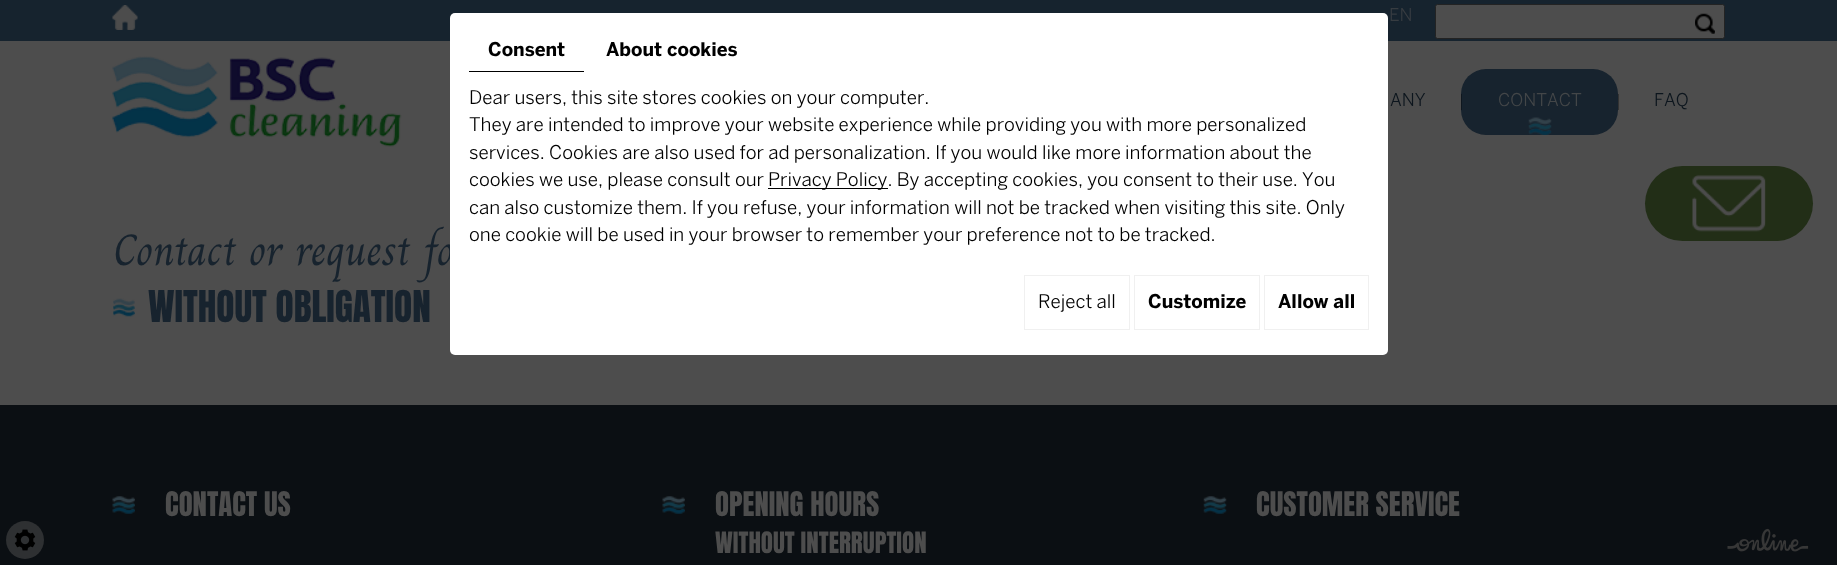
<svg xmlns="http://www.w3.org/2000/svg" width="1837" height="565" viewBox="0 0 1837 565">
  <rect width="100%" height="100%" fill="#16232e"/>
  <image x="112" y="5" width="26" height="25" href="img1.png"/>
  <text x="1389" y="21" font-family="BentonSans" font-size="17.5" fill="#373c41">EN</text>
  <rect x="1435.5" y="4.5" width="289" height="34" rx="2" fill="#4d4d4d" stroke="#232323"/>
  <image x="1695" y="13" width="20" height="21" href="img2.png"/>
  <rect x="0" y="41" width="1837" height="364" fill="#4d4d4d"/>
  <image x="112" y="56" width="290" height="91" href="img3.png"/>
  <text x="1390" y="106" font-family="BentonSans" font-size="17.5" fill="#0c151d">ANY</text>
  <rect x="1461" y="69" width="157" height="66" rx="25" fill="#17232e"/>
  <rect x="1461" y="94" width="1" height="16" fill="#0f171f"/>
  <image x="1528" y="117" width="24" height="18" href="img4.png"/>
  <text x="1498" y="106" font-family="BentonSans" font-size="17.5" fill="#434648">CONTACT</text>
  <rect x="1618" y="94" width="1" height="16" fill="#333333"/>
  <text x="1654" y="106" font-family="BentonSans" font-size="17.5" fill="#0c151d">FAQ</text>
  <rect x="1645" y="166" width="168" height="75" rx="37.5" fill="#222e17"/>
  <image x="1692" y="174" width="74" height="58" href="img5.png"/>
  <text x="113" y="265" font-family="Charm" font-size="43.75" fill="#17232e">Contact or request fo</text>
  <image x="113" y="298" width="22" height="19" href="img6.png"/>
  <text x="148" y="322" font-family="Anton" font-size="37.25" fill="#17232e">WITHOUT OBLIGATION</text>
  <rect x="0" y="405" width="1837" height="160" fill="#0b0f13"/>
  <image x="112" y="496" width="23" height="18" href="img7.png"/>
  <text x="165" y="516" font-family="Anton" font-size="28.75" fill="#4d4d4d">CONTACT US</text>
  <image x="662" y="496" width="23" height="18" href="img7.png"/>
  <text x="715" y="516" font-family="Anton" font-size="28.75" fill="#4d4d4d">OPENING HOURS</text>
  <text x="715" y="553" font-family="Anton" font-size="25" fill="#4d4d4d">WITHOUT INTERRUPTION</text>
  <image x="1203" y="496" width="24" height="18" href="img8.png"/>
  <text x="1256" y="516" font-family="Anton" font-size="28.75" fill="#4d4d4d">CUSTOMER SERVICE</text>
  <rect x="450" y="13" width="938" height="342" rx="5" fill="#ffffff"/>
  <rect x="469" y="71" width="115" height="1" fill="#000000"/>
  <text x="488" y="56" font-family="BentonSans" font-size="18.75" font-weight="bold" fill="#000000">Consent</text>
  <text x="606" y="56" font-family="BentonSans" font-size="18.75" font-weight="bold" fill="#000000">About cookies</text>
  <text x="469" y="104" font-family="BentonSans" font-size="18.75" fill="#000000">Dear users, this site stores cookies on your computer.</text>
  <text x="469" y="131" font-family="BentonSans" font-size="18.75" fill="#000000">They are intended to improve your website experience while providing you with more personalized</text>
  <text x="469" y="159" font-family="BentonSans" font-size="18.75" fill="#000000">services. Cookies are also used for ad personalization. If you would like more information about the</text>
  <text x="469" y="186" font-family="BentonSans" font-size="18.75" fill="#000000">cookies we use, please consult our</text>
  <rect x="768" y="188" width="120" height="1" fill="#000000"/>
  <text x="768" y="186" font-family="BentonSans" font-size="18.75" fill="#000000">Privacy Policy. By accepting cookies, you consent to their use. You</text>
  <text x="469" y="214" font-family="BentonSans" font-size="18.75" fill="#000000">can also customize them. If you refuse, your information will not be tracked when visiting this site. Only</text>
  <text x="469" y="241" font-family="BentonSans" font-size="18.75" fill="#000000">one cookie will be used in your browser to remember your preference not to be tracked.</text>
  <rect x="1024.5" y="275.5" width="105" height="54" fill="none" stroke="#f0f0f0"/>
  <text x="1038" y="308" font-family="BentonSans" font-size="18.75" fill="#000000">Reject all</text>
  <rect x="1134.5" y="275.5" width="125" height="54" fill="none" stroke="#f0f0f0"/>
  <text x="1148" y="308" font-family="BentonSans" font-size="18.75" font-weight="bold" fill="#000000">Customize</text>
  <rect x="1264.5" y="275.5" width="104" height="54" fill="none" stroke="#f0f0f0"/>
  <text x="1278" y="308" font-family="BentonSans" font-size="18.75" font-weight="bold" fill="#000000">Allow all</text>
  <circle cx="25" cy="540" r="19" fill="#2e3032"/>
  <image x="14" y="529" width="22" height="22" href="img9.png"/>
  <image x="1727" y="528" width="82" height="24" href="img10.png"/>
</svg>
